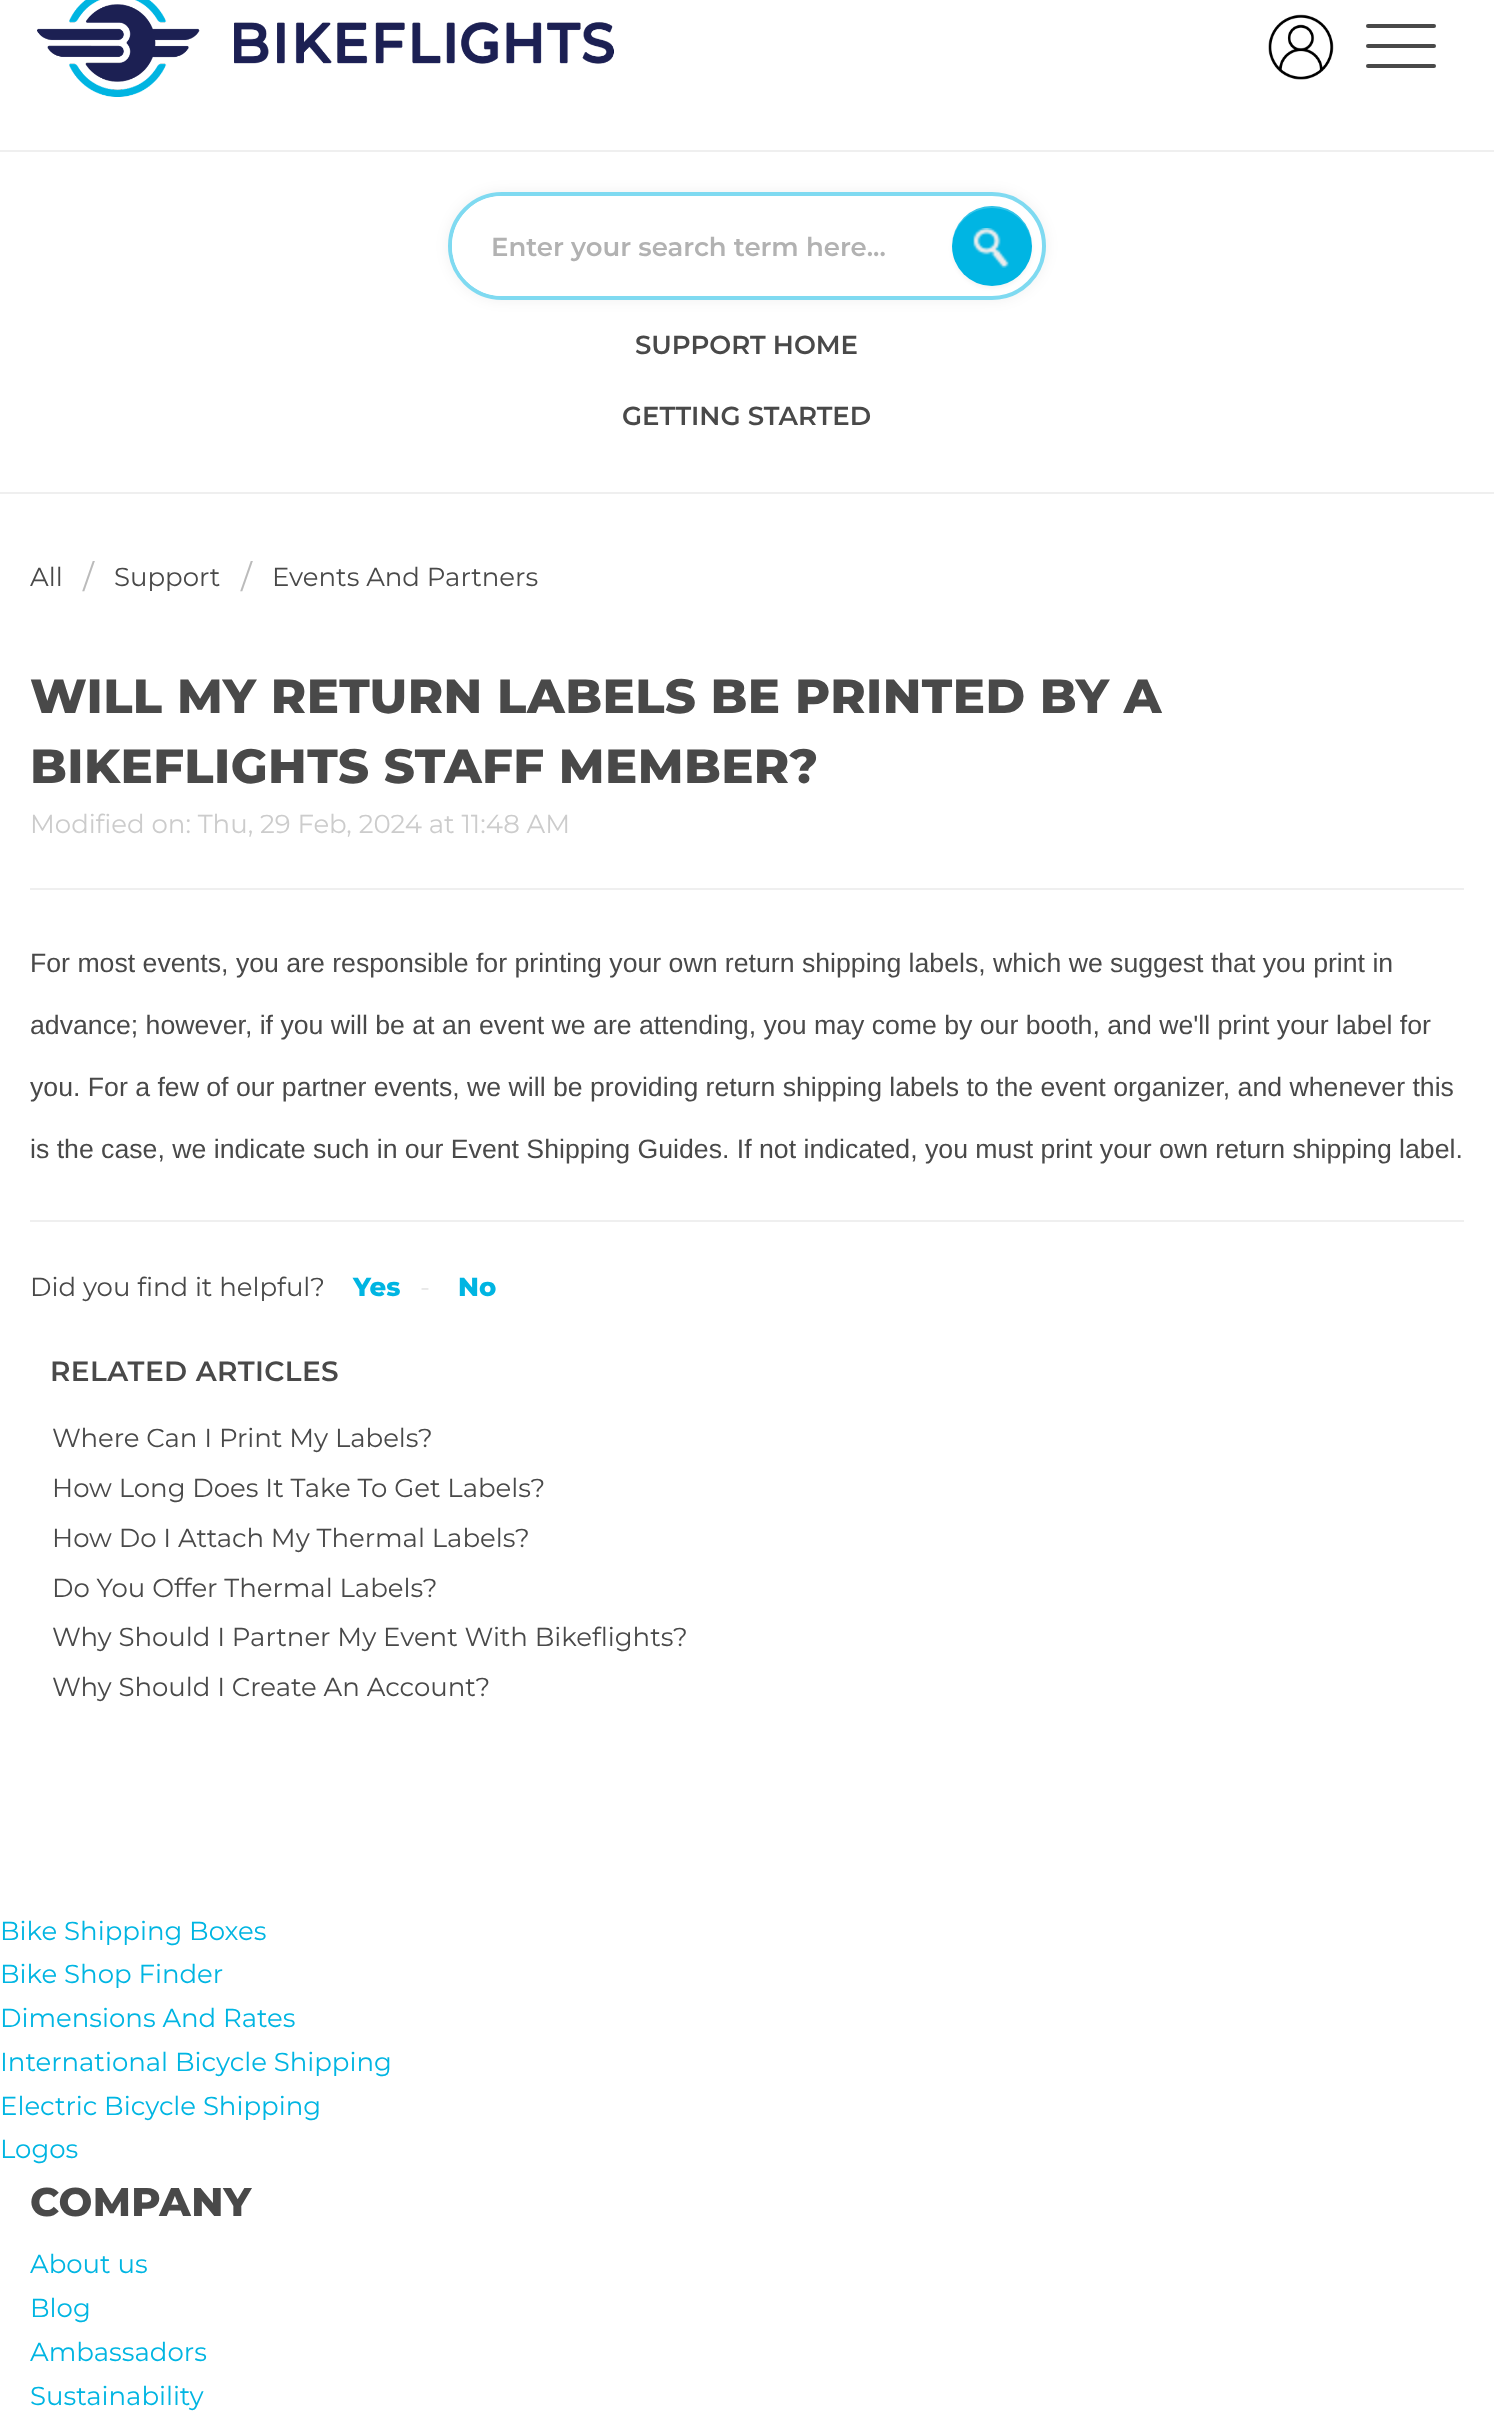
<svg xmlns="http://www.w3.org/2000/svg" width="1494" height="2418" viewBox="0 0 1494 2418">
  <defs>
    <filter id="blur1" x="-50%" y="-200%" width="200%" height="500%"><feGaussianBlur stdDeviation="7"/></filter>
    <filter id="blur2" x="-50%" y="-200%" width="200%" height="500%"><feGaussianBlur stdDeviation="2"/></filter>
  </defs>
  <rect width="100%" height="100%" fill="#ffffff"/>
  <image x="37" y="0" width="577" height="97" href="img1.png"/>
  <image x="1268" y="14" width="66" height="66" href="img2.png"/>
  <rect x="1366" y="24" width="70" height="4" rx="2" fill="#494949"/>
  <rect x="1366" y="44" width="70" height="4" rx="2" fill="#494949"/>
  <rect x="1366" y="64" width="70" height="4" rx="2" fill="#494949"/>
  <rect x="0" y="150" width="1494" height="2" fill="#efefef"/>
  <rect x="0" y="492" width="1494" height="2" fill="#efefef"/>
  <rect x="448" y="192" width="598" height="108" rx="54" fill="#020202" fill-opacity="0.06" filter="url(#blur1)"/>
  <rect x="450" y="194" width="594" height="104" rx="52" fill="#ffffff" stroke="#7fdaf1" stroke-width="4"/>
  <rect x="452" y="196" width="490" height="100" rx="50" fill="#ffffff"/>
  <text x="491" y="256" font-family="Montserrat" font-size="26" font-weight="600" fill="#b2b2b2">Enter your search term here...</text>
  <rect x="952" y="208" width="80" height="80" rx="40" fill="#000000" fill-opacity="0.05" filter="url(#blur2)"/>
  <circle cx="992" cy="246" r="40" fill="#00b5e3"/>
  <path d="M992 208C1014 208 1031 225 1032 247C1032 239 1030 231 1025 224C1003 191 951 207 952 247C953 225 970 208 992 208Z" fill="#ffffff" fill-opacity="0.2"/>
  <image x="973" y="228" width="36" height="40" href="img3.png"/>
  <text x="635" y="354" font-family="Montserrat" font-size="26" font-weight="600" fill="#494949">SUPPORT HOME</text>
  <text x="622" y="425" font-family="Montserrat" font-size="26" font-weight="600" fill="#494949">GETTING STARTED</text>
  <text x="30" y="586" font-family="Montserrat" font-size="26" fill="#494949">All</text>
  <text x="83" y="588" font-family="Montserrat" font-size="32" fill="#bbbbbb">/</text>
  <text x="114" y="586" font-family="Montserrat" font-size="26" fill="#494949">Support</text>
  <text x="241" y="588" font-family="Montserrat" font-size="32" fill="#bbbbbb">/</text>
  <text x="272" y="586" font-family="Montserrat" font-size="26" fill="#494949">Events And Partners</text>
  <text x="30" y="713" font-family="Montserrat" font-size="48" font-weight="800" letter-spacing="0.4" fill="#494949">WILL MY RETURN LABELS BE PRINTED BY A</text>
  <text x="30" y="783" font-family="Montserrat" font-size="48" font-weight="800" letter-spacing="0.4" fill="#494949">BIKEFLIGHTS STAFF MEMBER?</text>
  <text x="30" y="833" font-family="Montserrat" font-size="26" fill="#cccccc">Modified on: Thu, 29 Feb, 2024 at 11:48 AM</text>
  <rect x="30" y="888" width="1434" height="2" fill="#efefef"/>
  <text x="30" y="972" font-family="Liberation Sans" font-size="26.67" fill="#494949">For most events, you are responsible for printing your own return shipping labels, which we suggest that you print in</text>
  <text x="30" y="1034" font-family="Liberation Sans" font-size="26.67" fill="#494949">advance; however, if you will be at an event we are attending, you may come by our booth, and we'll print your label for</text>
  <text x="30" y="1096" font-family="Liberation Sans" font-size="26.67" fill="#494949">you. For a few of our partner events, we will be providing return shipping labels to the event organizer, and whenever this</text>
  <text x="30" y="1158" font-family="Liberation Sans" font-size="26.67" fill="#494949">is the case, we indicate such in our Event Shipping Guides. If not indicated, you must print your own return shipping label.</text>
  <rect x="30" y="1220" width="1434" height="2" fill="#efefef"/>
  <text x="30" y="1296" font-family="Montserrat" font-size="26" fill="#494949">Did you find it helpful?</text>
  <text x="353" y="1296" font-family="Montserrat" font-size="26" font-weight="800" fill="#00b5e2">Yes</text>
  <text x="420" y="1296" font-family="Montserrat" font-size="26" fill="#e5e5e5">-</text>
  <text x="458" y="1296" font-family="Montserrat" font-size="26" font-weight="800" fill="#00b5e2">No</text>
  <text x="50" y="1381" font-family="Montserrat" font-size="28" font-weight="600" letter-spacing="0.4" fill="#494949">RELATED ARTICLES</text>
  <text x="52" y="1447" font-family="Montserrat" font-size="26" fill="#494949">Where Can I Print My Labels?</text>
  <text x="52" y="1497" font-family="Montserrat" font-size="26" fill="#494949">How Long Does It Take To Get Labels?</text>
  <text x="52" y="1547" font-family="Montserrat" font-size="26" fill="#494949">How Do I Attach My Thermal Labels?</text>
  <text x="52" y="1597" font-family="Montserrat" font-size="26" fill="#494949">Do You Offer Thermal Labels?</text>
  <text x="52" y="1646" font-family="Montserrat" font-size="26" fill="#494949">Why Should I Partner My Event With Bikeflights?</text>
  <text x="52" y="1696" font-family="Montserrat" font-size="26" fill="#494949">Why Should I Create An Account?</text>
  <text x="0" y="1940" font-family="Montserrat" font-size="26" fill="#00b5e2">Bike Shipping Boxes</text>
  <text x="0" y="1983" font-family="Montserrat" font-size="26" fill="#00b5e2">Bike Shop Finder</text>
  <text x="0" y="2027" font-family="Montserrat" font-size="26" fill="#00b5e2">Dimensions And Rates</text>
  <text x="0" y="2071" font-family="Montserrat" font-size="26" fill="#00b5e2">International Bicycle Shipping</text>
  <text x="0" y="2115" font-family="Montserrat" font-size="26" fill="#00b5e2">Electric Bicycle Shipping</text>
  <text x="0" y="2158" font-family="Montserrat" font-size="26" fill="#00b5e2">Logos</text>
  <text x="30" y="2216" font-family="Montserrat" font-size="40" font-weight="800" letter-spacing="0.4" fill="#494949">COMPANY</text>
  <text x="30" y="2273" font-family="Montserrat" font-size="26" fill="#00b5e2">About us</text>
  <text x="30" y="2317" font-family="Montserrat" font-size="26" fill="#00b5e2">Blog</text>
  <text x="30" y="2361" font-family="Montserrat" font-size="26" fill="#00b5e2">Ambassadors</text>
  <text x="30" y="2405" font-family="Montserrat" font-size="26" fill="#00b5e2">Sustainability</text>
</svg>
